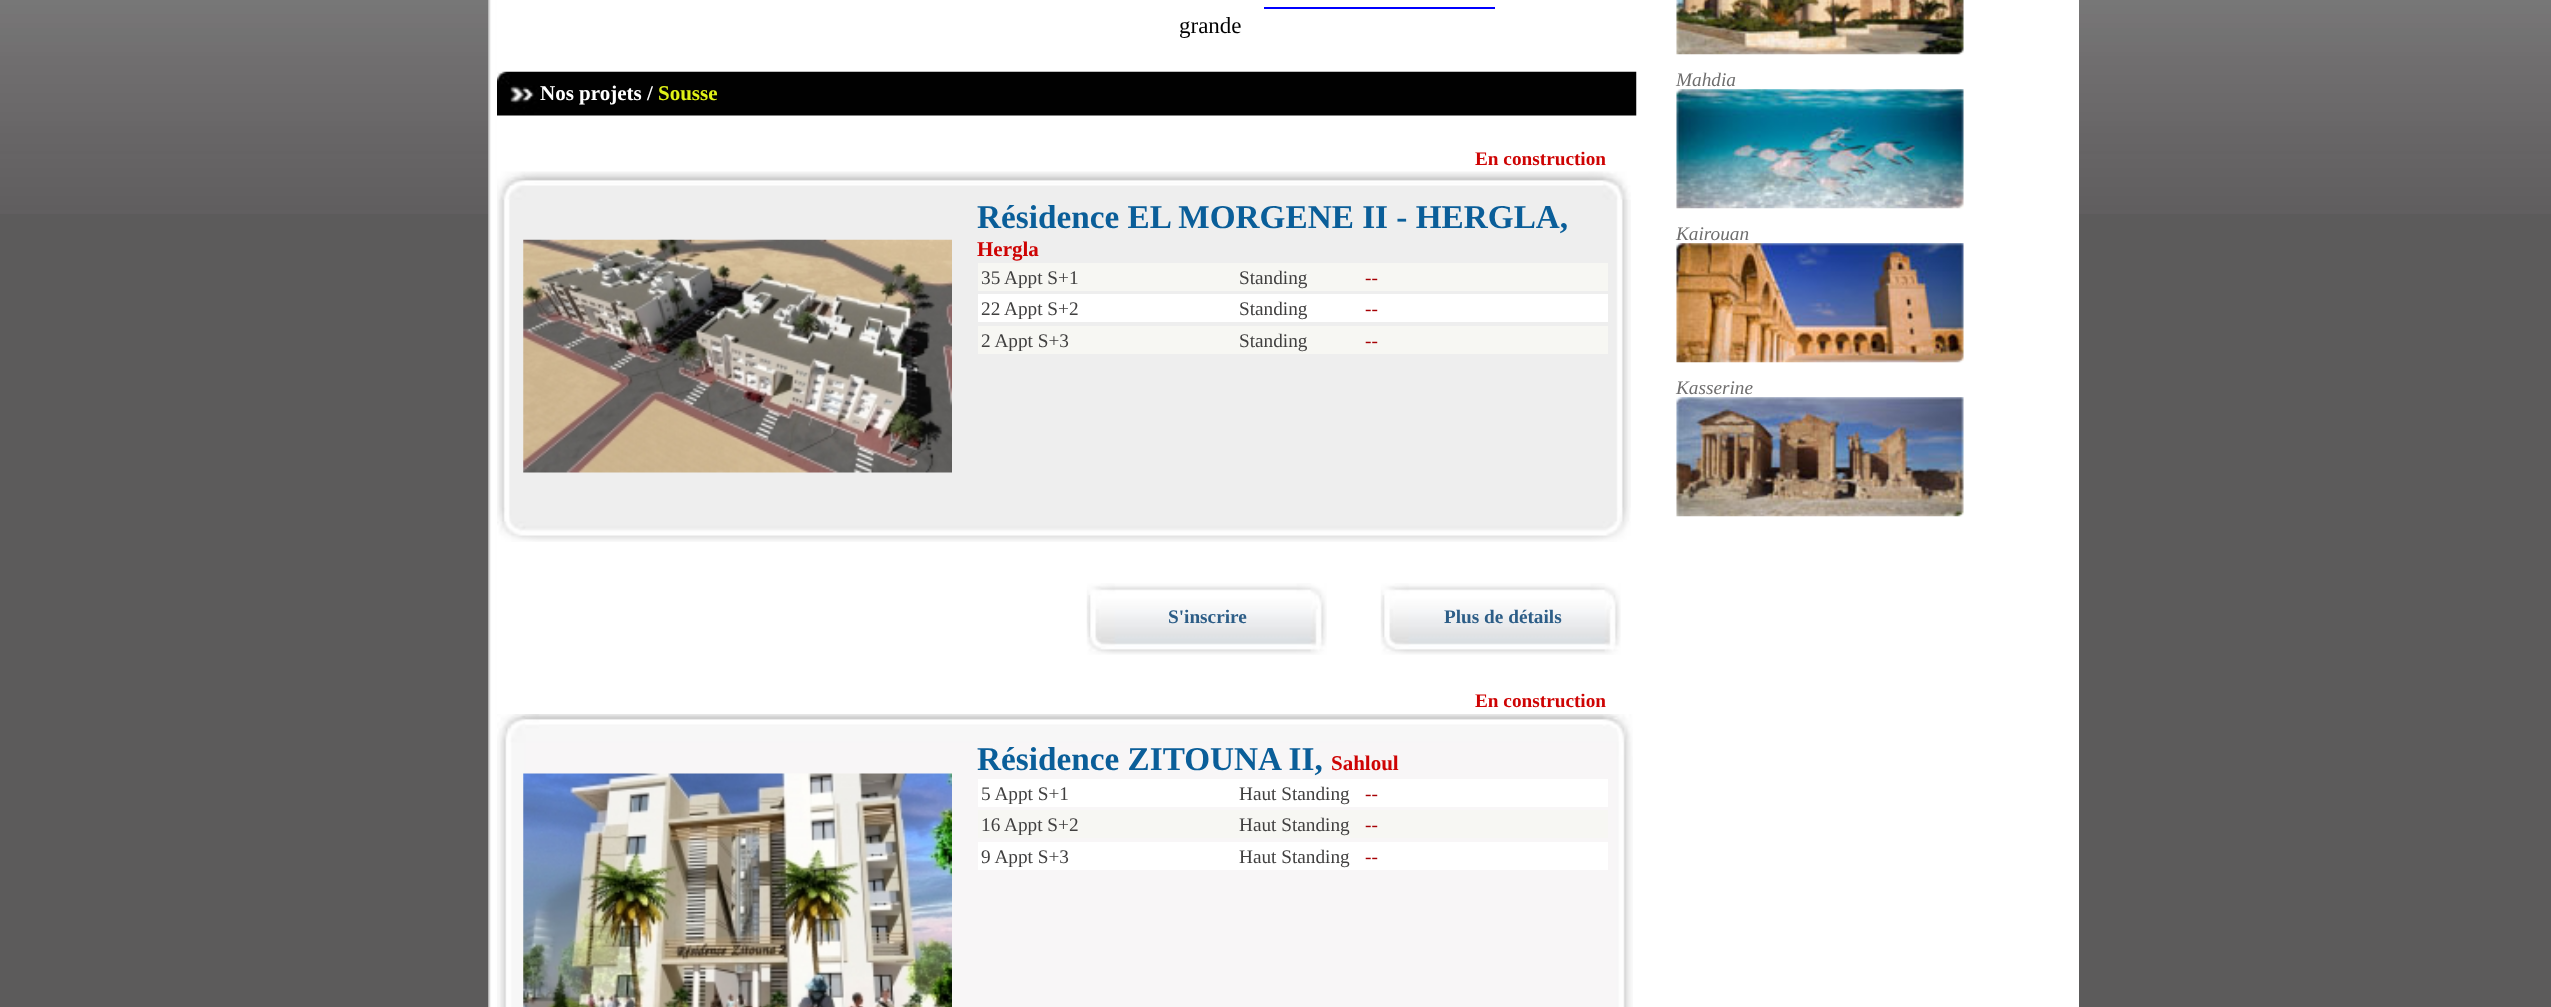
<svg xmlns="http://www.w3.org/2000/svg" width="2551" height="1007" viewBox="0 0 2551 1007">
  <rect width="100%" height="100%" fill="#5c5b5b"/>
  <image x="0" y="0" width="2551" height="214" href="img1.png"/>
  <image x="488" y="0" width="1591" height="1007" href="img2.png"/>
  <text x="1179" y="33" font-family="Liberation Serif" font-size="23" fill="#000000">grande</text>
  <rect x="1264" y="7" width="231" height="2" fill="#0000ff"/>
  <image x="497" y="71" width="1140" height="45" href="img3.png"/>
  <text x="540" y="100" font-family="Liberation Serif" font-size="21" font-weight="bold" fill="#ffffff">Nos projets /</text>
  <text x="658" y="100" font-family="Liberation Serif" font-size="21" font-weight="bold" fill="#e0f217">Sousse</text>
  <text x="1475" y="165" font-family="Liberation Serif" font-size="19.25" font-weight="bold" fill="#ce0303">En construction</text>
  <image x="497" y="171" width="1134" height="371" href="img4.png"/>
  <image x="523" y="239" width="429" height="234" href="img5.png"/>
  <text x="977" y="228" font-family="Liberation Serif" font-size="33.25" font-weight="bold" fill="#0a5e99">Résidence EL MORGENE II - HERGLA,</text>
  <text x="977" y="256" font-family="Liberation Serif" font-size="21" font-weight="bold" fill="#ce0303">Hergla</text>
  <rect x="978" y="263" width="630" height="28" fill="#f7f7f3"/>
  <text x="981" y="284" font-family="Liberation Serif" font-size="19.25" fill="#414040">35 Appt S+1</text>
  <text x="1239" y="284" font-family="Liberation Serif" font-size="19.25" fill="#414040">Standing</text>
  <text x="1365" y="284" font-family="Liberation Serif" font-size="19.25" fill="#a60004">--</text>
  <rect x="978" y="294" width="630" height="28" fill="#ffffff"/>
  <text x="981" y="315" font-family="Liberation Serif" font-size="19.25" fill="#414040">22 Appt S+2</text>
  <text x="1239" y="315" font-family="Liberation Serif" font-size="19.25" fill="#414040">Standing</text>
  <text x="1365" y="315" font-family="Liberation Serif" font-size="19.25" fill="#a60004">--</text>
  <rect x="978" y="326" width="630" height="28" fill="#f7f7f3"/>
  <text x="981" y="347" font-family="Liberation Serif" font-size="19.25" fill="#414040">2 Appt S+3</text>
  <text x="1239" y="347" font-family="Liberation Serif" font-size="19.25" fill="#414040">Standing</text>
  <text x="1365" y="347" font-family="Liberation Serif" font-size="19.25" fill="#a60004">--</text>
  <image x="1086" y="583" width="241" height="72" href="img6.png"/>
  <text x="1168" y="623" font-family="Liberation Serif" font-size="19.25" font-weight="bold" fill="#2c5d87">S'inscrire</text>
  <image x="1380" y="583" width="241" height="72" href="img6.png"/>
  <text x="1444" y="623" font-family="Liberation Serif" font-size="19.25" font-weight="bold" fill="#2c5d87">Plus de détails</text>
  <text x="1475" y="707" font-family="Liberation Serif" font-size="19.25" font-weight="bold" fill="#ce0303">En construction</text>
  <image x="497" y="714" width="1136" height="293" href="img7.png"/>
  <image x="523" y="773" width="429" height="234" href="img8.png"/>
  <text x="977" y="770" font-family="Liberation Serif" font-size="33.25" font-weight="bold" fill="#0a5e99">Résidence ZITOUNA II,</text>
  <text x="1331" y="770" font-family="Liberation Serif" font-size="21" font-weight="bold" fill="#ce0303">Sahloul</text>
  <rect x="978" y="779" width="630" height="28" fill="#ffffff"/>
  <text x="981" y="800" font-family="Liberation Serif" font-size="19.25" fill="#414040">5 Appt S+1</text>
  <text x="1239" y="800" font-family="Liberation Serif" font-size="19.25" fill="#414040">Haut Standing</text>
  <text x="1365" y="800" font-family="Liberation Serif" font-size="19.25" fill="#a60004">--</text>
  <rect x="978" y="810" width="630" height="28" fill="#f7f7f3"/>
  <text x="981" y="831" font-family="Liberation Serif" font-size="19.25" fill="#414040">16 Appt S+2</text>
  <text x="1239" y="831" font-family="Liberation Serif" font-size="19.25" fill="#414040">Haut Standing</text>
  <text x="1365" y="831" font-family="Liberation Serif" font-size="19.25" fill="#a60004">--</text>
  <rect x="978" y="842" width="630" height="28" fill="#ffffff"/>
  <text x="981" y="863" font-family="Liberation Serif" font-size="19.25" fill="#414040">9 Appt S+3</text>
  <text x="1239" y="863" font-family="Liberation Serif" font-size="19.25" fill="#414040">Haut Standing</text>
  <text x="1365" y="863" font-family="Liberation Serif" font-size="19.25" fill="#a60004">--</text>
  <image x="1676" y="0" width="288" height="55" href="img9.png"/>
  <text x="1676" y="86" font-family="Liberation Serif" font-size="19.25" font-style="italic" fill="#6f6e6e">Mahdia</text>
  <image x="1676" y="89" width="288" height="120" href="img10.png"/>
  <text x="1676" y="240" font-family="Liberation Serif" font-size="19.25" font-style="italic" fill="#6f6e6e">Kairouan</text>
  <image x="1676" y="243" width="288" height="120" href="img11.png"/>
  <text x="1676" y="394" font-family="Liberation Serif" font-size="19.25" font-style="italic" fill="#6f6e6e">Kasserine</text>
  <image x="1676" y="397" width="288" height="120" href="img12.png"/>
</svg>
